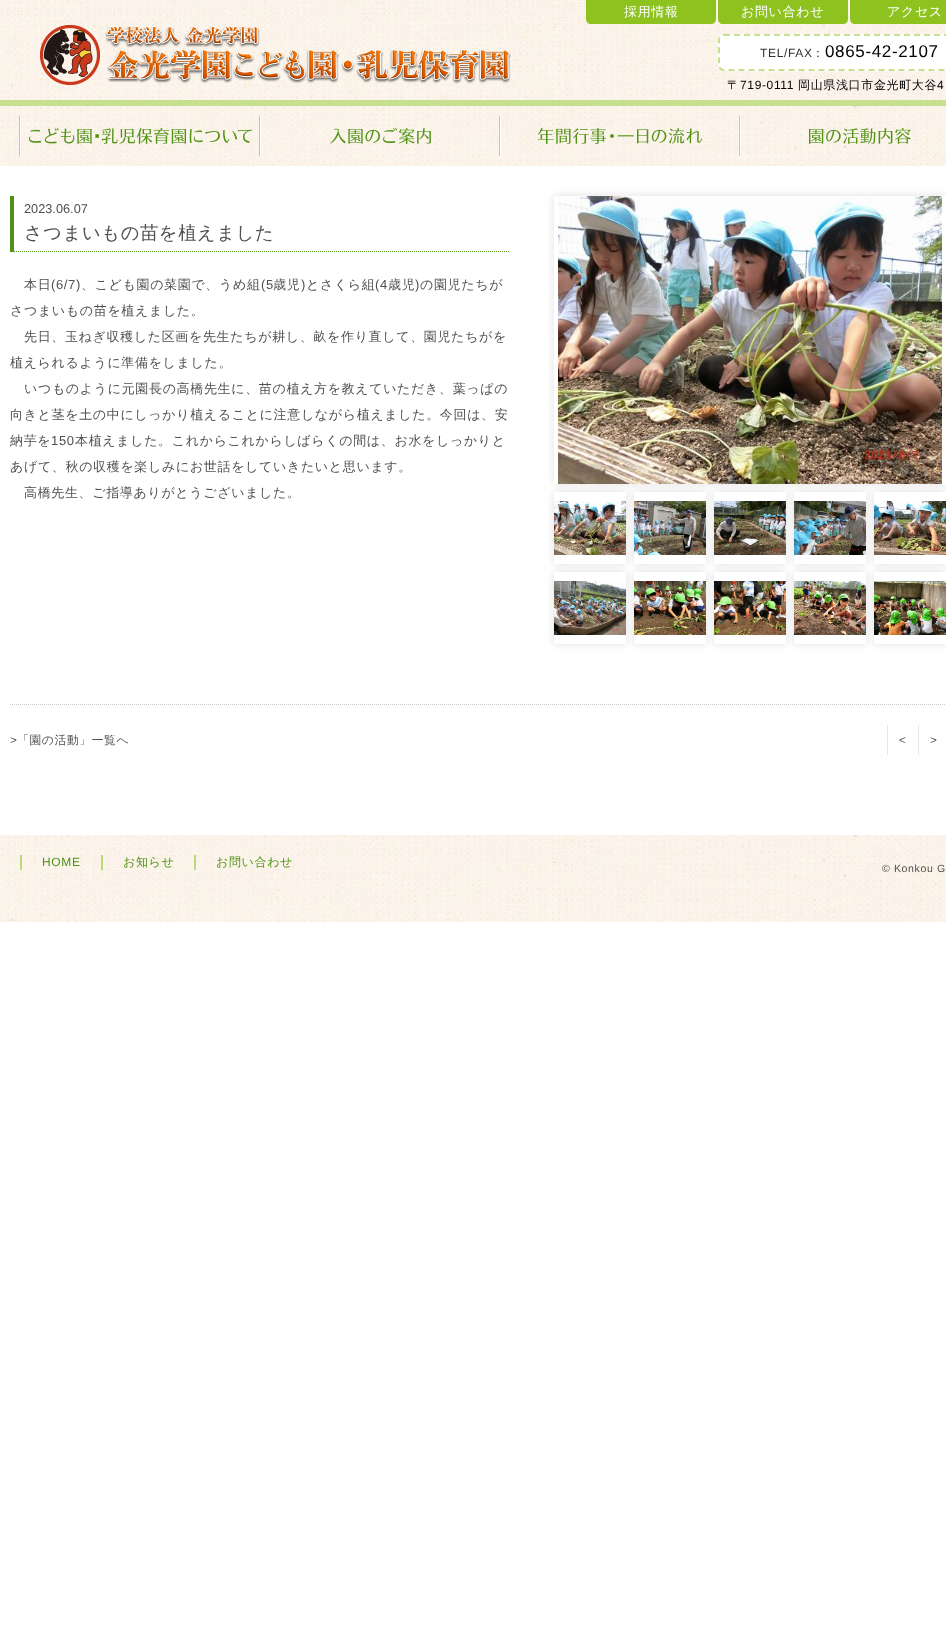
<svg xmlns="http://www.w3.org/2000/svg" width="946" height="1644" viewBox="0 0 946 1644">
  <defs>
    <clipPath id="clip1"><path d="M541 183H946V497H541ZM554 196H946V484H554Z" clip-rule="evenodd"/></clipPath>
    <filter id="blur1" x="-50%" y="-200%" width="200%" height="500%"><feGaussianBlur stdDeviation="4"/></filter>
    <clipPath id="clip2"><path d="M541 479H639V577H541ZM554 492H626V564H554Z" clip-rule="evenodd"/></clipPath>
    <clipPath id="clip3"><path d="M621 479H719V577H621ZM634 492H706V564H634Z" clip-rule="evenodd"/></clipPath>
    <clipPath id="clip4"><path d="M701 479H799V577H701ZM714 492H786V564H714Z" clip-rule="evenodd"/></clipPath>
    <clipPath id="clip5"><path d="M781 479H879V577H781ZM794 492H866V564H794Z" clip-rule="evenodd"/></clipPath>
    <clipPath id="clip6"><path d="M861 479H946V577H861ZM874 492H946V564H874Z" clip-rule="evenodd"/></clipPath>
    <clipPath id="clip7"><path d="M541 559H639V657H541ZM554 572H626V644H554Z" clip-rule="evenodd"/></clipPath>
    <clipPath id="clip8"><path d="M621 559H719V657H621ZM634 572H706V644H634Z" clip-rule="evenodd"/></clipPath>
    <clipPath id="clip9"><path d="M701 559H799V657H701ZM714 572H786V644H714Z" clip-rule="evenodd"/></clipPath>
    <clipPath id="clip10"><path d="M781 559H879V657H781ZM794 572H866V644H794Z" clip-rule="evenodd"/></clipPath>
    <clipPath id="clip11"><path d="M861 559H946V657H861ZM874 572H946V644H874Z" clip-rule="evenodd"/></clipPath>
  </defs>
  <rect width="100%" height="100%" fill="#ffffff"/>
  <image x="0" y="0" width="946" height="100" href="img1.png"/>
  <rect x="0" y="100" width="946" height="6" fill="#c6e08f"/>
  <path d="M586 0H716V19C716 22 714 24 711 24H591C588 24 586 22 586 19Z" fill="#8dc21f"/>
  <text x="624" y="16" font-family="WenQuanYi Zen Hei" font-size="13" font-weight="500" letter-spacing="0.65" fill="#ffffff">採用情報</text>
  <path d="M718 0H848V19C848 22 846 24 843 24H723C720 24 718 22 718 19Z" fill="#8dc21f"/>
  <text x="741" y="16" font-family="WenQuanYi Zen Hei" font-size="13" font-weight="500" letter-spacing="0.65" fill="#ffffff">お問い合わせ</text>
  <path d="M850 0H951V19C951 22 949 24 946 24H855C852 24 850 22 850 19Z" fill="#8dc21f"/>
  <text x="887" y="16" font-family="WenQuanYi Zen Hei" font-size="13" font-weight="500" letter-spacing="0.65" fill="#ffffff">アクセス</text>
  <image x="40" y="25" width="471" height="60" href="img2.png"/>
  <rect x="718" y="34" width="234" height="37" rx="6" fill="#ffffff"/>
  <path d="M724 35H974C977 35 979 37 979 40V65C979 68 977 70 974 70H724C721 70 719 68 719 65V40C719 37 721 35 724 35Z" fill="none" stroke="#c6e08f" stroke-width="2" stroke-dasharray="6 4"/>
  <text x="760" y="57" font-family="Liberation Sans" font-size="12" letter-spacing="0.65" fill="#323232">TEL/FAX</text>
  <text x="812" y="57" font-family="WenQuanYi Zen Hei" font-size="12" font-weight="500" letter-spacing="0.65" fill="#323232">：</text>
  <text x="825" y="57" font-family="Liberation Sans" font-size="17" letter-spacing="0.65" fill="#000000">0865-42-2107</text>
  <text x="727" y="89" font-family="WenQuanYi Zen Hei" font-size="12" font-weight="500" letter-spacing="0.65" fill="#000000">〒</text>
  <text x="740" y="89" font-family="Liberation Sans" font-size="12" letter-spacing="0.65" fill="#000000">719-0111</text>
  <text x="798" y="89" font-family="WenQuanYi Zen Hei" font-size="12" font-weight="500" letter-spacing="0.65" fill="#000000">岡山県浅口市金光町大谷</text>
  <text x="937" y="89" font-family="Liberation Sans" font-size="12" letter-spacing="0.65" fill="#000000">4</text>
  <image x="0" y="106" width="946" height="60" href="img3.png"/>
  <rect x="19" y="116" width="1" height="40" fill="#c7c1bb"/>
  <rect x="259" y="116" width="1" height="40" fill="#c7c1bb"/>
  <rect x="20" y="116" width="1" height="40" fill="#ffffff"/>
  <image x="29" y="128" width="223" height="16" href="img4.png"/>
  <rect x="499" y="116" width="1" height="40" fill="#c7c1bb"/>
  <rect x="260" y="116" width="1" height="40" fill="#ffffff"/>
  <image x="330" y="128" width="101" height="16" href="img5.png"/>
  <rect x="739" y="116" width="1" height="40" fill="#c7c1bb"/>
  <rect x="500" y="116" width="1" height="40" fill="#ffffff"/>
  <image x="538" y="128" width="165" height="16" href="img6.png"/>
  <rect x="740" y="116" width="1" height="40" fill="#ffffff"/>
  <image x="809" y="128" width="102" height="16" href="img7.png"/>
  <path d="M10 251.5H510" fill="none" stroke="#509316" stroke-dasharray="1 1"/>
  <rect x="10" y="196" width="4" height="56" fill="#509316"/>
  <text x="24" y="213" font-family="Liberation Sans" font-size="12.75" fill="#505050">2023.06.07</text>
  <text x="24" y="239" font-family="WenQuanYi Zen Hei" font-size="18.25" font-weight="500" letter-spacing="0.65" fill="#505050">さつまいもの苗を植えました</text>
  <g clip-path="url(#clip1)">
    <rect x="554" y="196" width="392" height="288" fill="#dfdfdf" filter="url(#blur1)"/>
  </g>
  <image x="558" y="196" width="384" height="288" href="img8.png"/>
  <g clip-path="url(#clip2)">
    <rect x="554" y="492" width="72" height="72" fill="#dfdfdf" filter="url(#blur1)"/>
  </g>
  <image x="554" y="501" width="72" height="54" href="img9.png"/>
  <g clip-path="url(#clip3)">
    <rect x="634" y="492" width="72" height="72" fill="#dfdfdf" filter="url(#blur1)"/>
  </g>
  <image x="634" y="501" width="72" height="54" href="img10.png"/>
  <g clip-path="url(#clip4)">
    <rect x="714" y="492" width="72" height="72" fill="#dfdfdf" filter="url(#blur1)"/>
  </g>
  <image x="714" y="501" width="72" height="54" href="img11.png"/>
  <g clip-path="url(#clip5)">
    <rect x="794" y="492" width="72" height="72" fill="#dfdfdf" filter="url(#blur1)"/>
  </g>
  <image x="794" y="501" width="72" height="54" href="img12.png"/>
  <g clip-path="url(#clip6)">
    <rect x="874" y="492" width="72" height="72" fill="#dfdfdf" filter="url(#blur1)"/>
  </g>
  <image x="874" y="501" width="72" height="54" href="img13.png"/>
  <g clip-path="url(#clip7)">
    <rect x="554" y="572" width="72" height="72" fill="#dfdfdf" filter="url(#blur1)"/>
  </g>
  <image x="554" y="581" width="72" height="54" href="img14.png"/>
  <g clip-path="url(#clip8)">
    <rect x="634" y="572" width="72" height="72" fill="#dfdfdf" filter="url(#blur1)"/>
  </g>
  <image x="634" y="581" width="72" height="54" href="img15.png"/>
  <g clip-path="url(#clip9)">
    <rect x="714" y="572" width="72" height="72" fill="#dfdfdf" filter="url(#blur1)"/>
  </g>
  <image x="714" y="581" width="72" height="54" href="img16.png"/>
  <g clip-path="url(#clip10)">
    <rect x="794" y="572" width="72" height="72" fill="#dfdfdf" filter="url(#blur1)"/>
  </g>
  <image x="794" y="581" width="72" height="54" href="img17.png"/>
  <g clip-path="url(#clip11)">
    <rect x="874" y="572" width="72" height="72" fill="#dfdfdf" filter="url(#blur1)"/>
  </g>
  <image x="874" y="581" width="72" height="54" href="img18.png"/>
  <text x="24" y="289" font-family="WenQuanYi Zen Hei" font-size="13" font-weight="500" letter-spacing="0.65" fill="#505050">本日</text>
  <text x="51" y="289" font-family="Liberation Sans" font-size="13" letter-spacing="0.65" fill="#505050">(6/7)</text>
  <text x="81" y="289" font-family="WenQuanYi Zen Hei" font-size="13" font-weight="500" letter-spacing="0.65" fill="#505050">、こども園の菜園で、うめ組</text>
  <text x="261" y="289" font-family="Liberation Sans" font-size="13" letter-spacing="0.65" fill="#505050">(5</text>
  <text x="273" y="289" font-family="WenQuanYi Zen Hei" font-size="13" font-weight="500" letter-spacing="0.65" fill="#505050">歳児</text>
  <text x="301" y="289" font-family="Liberation Sans" font-size="13" letter-spacing="0.65" fill="#505050">)</text>
  <text x="306" y="289" font-family="WenQuanYi Zen Hei" font-size="13" font-weight="500" letter-spacing="0.65" fill="#505050">とさくら組</text>
  <text x="375" y="289" font-family="Liberation Sans" font-size="13" letter-spacing="0.65" fill="#505050">(4</text>
  <text x="388" y="289" font-family="WenQuanYi Zen Hei" font-size="13" font-weight="500" letter-spacing="0.65" fill="#505050">歳児</text>
  <text x="415" y="289" font-family="Liberation Sans" font-size="13" letter-spacing="0.65" fill="#505050">)</text>
  <text x="420" y="289" font-family="WenQuanYi Zen Hei" font-size="13" font-weight="500" letter-spacing="0.65" fill="#505050">の園児たちが</text>
  <text x="10" y="315" font-family="WenQuanYi Zen Hei" font-size="13" font-weight="500" letter-spacing="0.65" fill="#505050">さつまいもの苗を植えました。</text>
  <text x="24" y="341" font-family="WenQuanYi Zen Hei" font-size="13" font-weight="500" letter-spacing="0.65" fill="#505050">先日、玉ねぎ収穫した区画を先生たちが耕し、畝を作り直して、園児たちがを</text>
  <text x="10" y="367" font-family="WenQuanYi Zen Hei" font-size="13" font-weight="500" letter-spacing="0.65" fill="#505050">植えられるように準備をしました。</text>
  <text x="24" y="393" font-family="WenQuanYi Zen Hei" font-size="13" font-weight="500" letter-spacing="0.65" fill="#505050">いつものように元園長の高橋先生に、苗の植え方を教えていただき、葉っぱの</text>
  <text x="10" y="419" font-family="WenQuanYi Zen Hei" font-size="13" font-weight="500" letter-spacing="0.65" fill="#505050">向きと茎を土の中にしっかり植えることに注意しながら植えました。今回は、安</text>
  <text x="10" y="445" font-family="WenQuanYi Zen Hei" font-size="13" font-weight="500" letter-spacing="0.65" fill="#505050">納芋を</text>
  <text x="51" y="445" font-family="Liberation Sans" font-size="13" letter-spacing="0.65" fill="#505050">150</text>
  <text x="75" y="445" font-family="WenQuanYi Zen Hei" font-size="13" font-weight="500" letter-spacing="0.65" fill="#505050">本植えました。これからこれからしばらくの間は、お水をしっかりと</text>
  <text x="10" y="471" font-family="WenQuanYi Zen Hei" font-size="13" font-weight="500" letter-spacing="0.65" fill="#505050">あげて、秋の収穫を楽しみにお世話をしていきたいと思います。</text>
  <text x="24" y="497" font-family="WenQuanYi Zen Hei" font-size="13" font-weight="500" letter-spacing="0.65" fill="#505050">高橋先生、ご指導ありがとうございました。</text>
  <path d="M10 704.5H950" fill="none" stroke="#cccccc" stroke-dasharray="1 1"/>
  <text x="10" y="744" font-family="Liberation Sans" font-size="11.75" letter-spacing="0.65" fill="#505050">&gt;</text>
  <text x="17" y="744" font-family="WenQuanYi Zen Hei" font-size="11.75" font-weight="500" letter-spacing="0.65" fill="#505050">「園の活動」一覧へ</text>
  <rect x="887" y="725" width="1" height="30" fill="#e6e6e6"/>
  <text x="899" y="744" font-family="Liberation Sans" font-size="11.75" letter-spacing="0.65" fill="#505050">&lt;</text>
  <rect x="918" y="725" width="1" height="30" fill="#e6e6e6"/>
  <text x="930" y="744" font-family="Liberation Sans" font-size="11.75" letter-spacing="0.65" fill="#505050">&gt;</text>
  <image x="0" y="835" width="946" height="87" href="img19.png"/>
  <rect x="20" y="855" width="2" height="15" fill="#bbda79"/>
  <text x="42" y="866" font-family="Liberation Sans" font-size="12" letter-spacing="0.65" fill="#509316">HOME</text>
  <rect x="101" y="855" width="2" height="15" fill="#bbda79"/>
  <text x="123" y="866" font-family="WenQuanYi Zen Hei" font-size="12" font-weight="500" letter-spacing="0.65" fill="#509316">お知らせ</text>
  <rect x="194" y="855" width="2" height="15" fill="#bbda79"/>
  <text x="216" y="866" font-family="WenQuanYi Zen Hei" font-size="12" font-weight="500" letter-spacing="0.65" fill="#509316">お問い合わせ</text>
  <text x="882" y="872" font-family="Liberation Sans" font-size="10.5" letter-spacing="0.65" fill="#505050">© Konkou G</text>
</svg>
